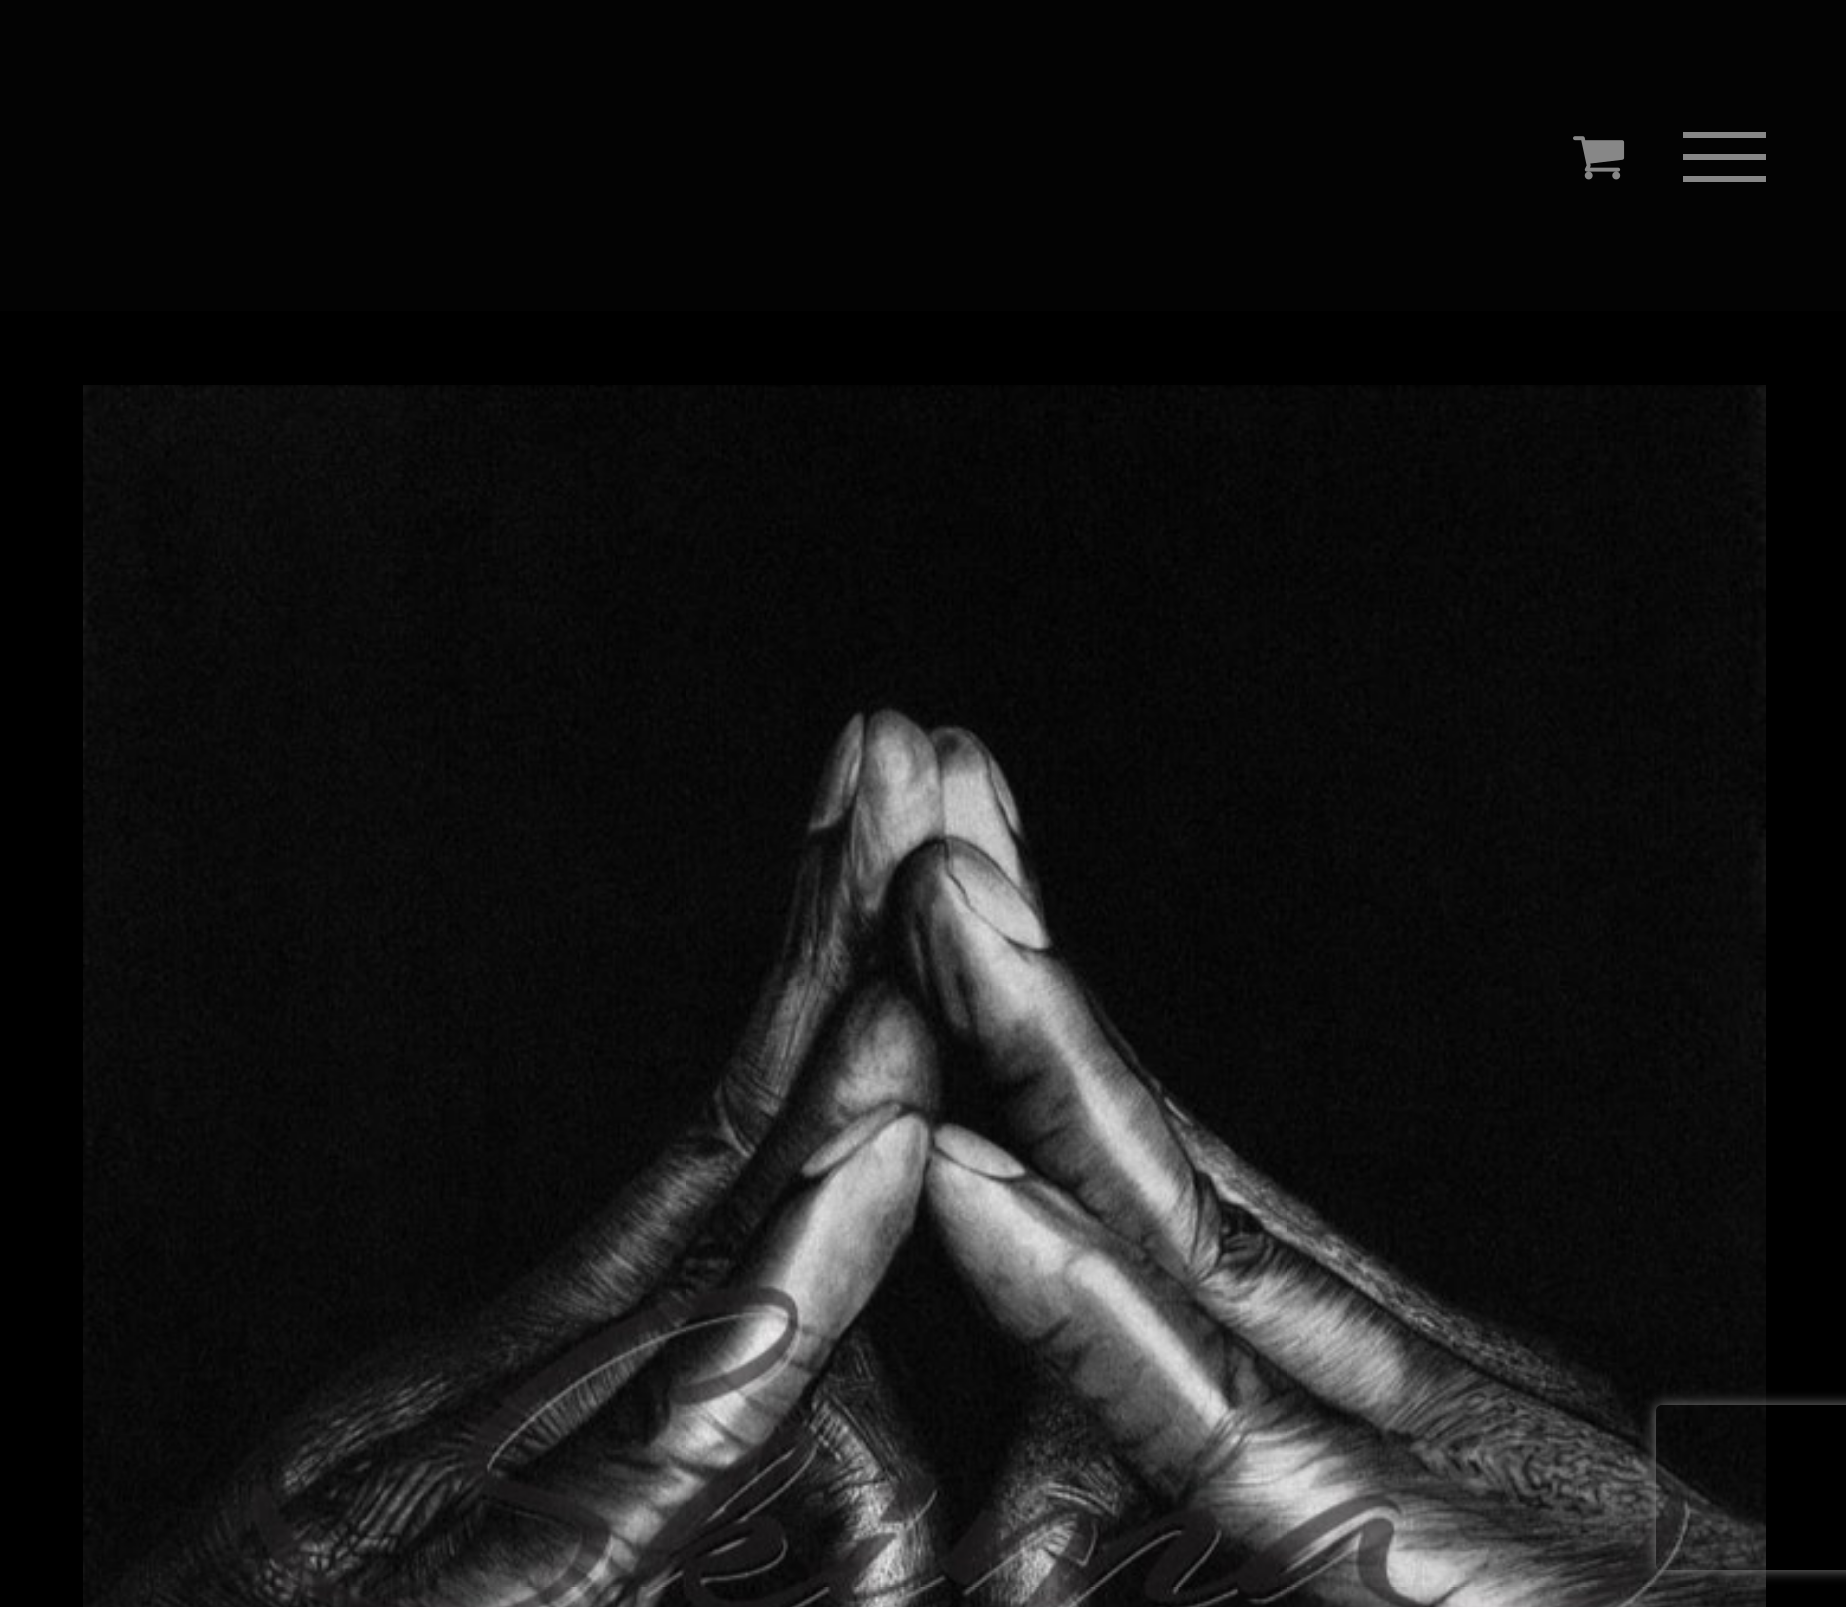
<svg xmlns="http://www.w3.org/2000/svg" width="1846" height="1607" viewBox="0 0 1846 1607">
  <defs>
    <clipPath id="clip1"><path d="M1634 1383H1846V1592H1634ZM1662 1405H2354C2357.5 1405 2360 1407.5 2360 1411V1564C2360 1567.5 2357.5 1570 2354 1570H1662C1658.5 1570 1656 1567.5 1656 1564V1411C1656 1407.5 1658.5 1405 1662 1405Z" clip-rule="evenodd"/></clipPath>
    <filter id="blur1" x="-50%" y="-200%" width="200%" height="500%"><feGaussianBlur stdDeviation="7"/></filter>
  </defs>
  <rect width="100%" height="100%" fill="#000000"/>
  <rect x="0" y="0" width="1846" height="311" fill="#030303"/>
  <image x="1573" y="136" width="52" height="44" href="img1.png"/>
  <rect x="1683" y="132" width="83" height="6" fill="#878787"/>
  <rect x="1683" y="154" width="83" height="6" fill="#878787"/>
  <rect x="1683" y="176" width="83" height="6" fill="#878787"/>
  <image x="83" y="385" width="1683" height="1222" href="img2.png"/>
  <g clip-path="url(#clip1)">
    <rect x="1656" y="1405" width="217" height="165" rx="6" fill="#808080" filter="url(#blur1)"/>
  </g>
</svg>
